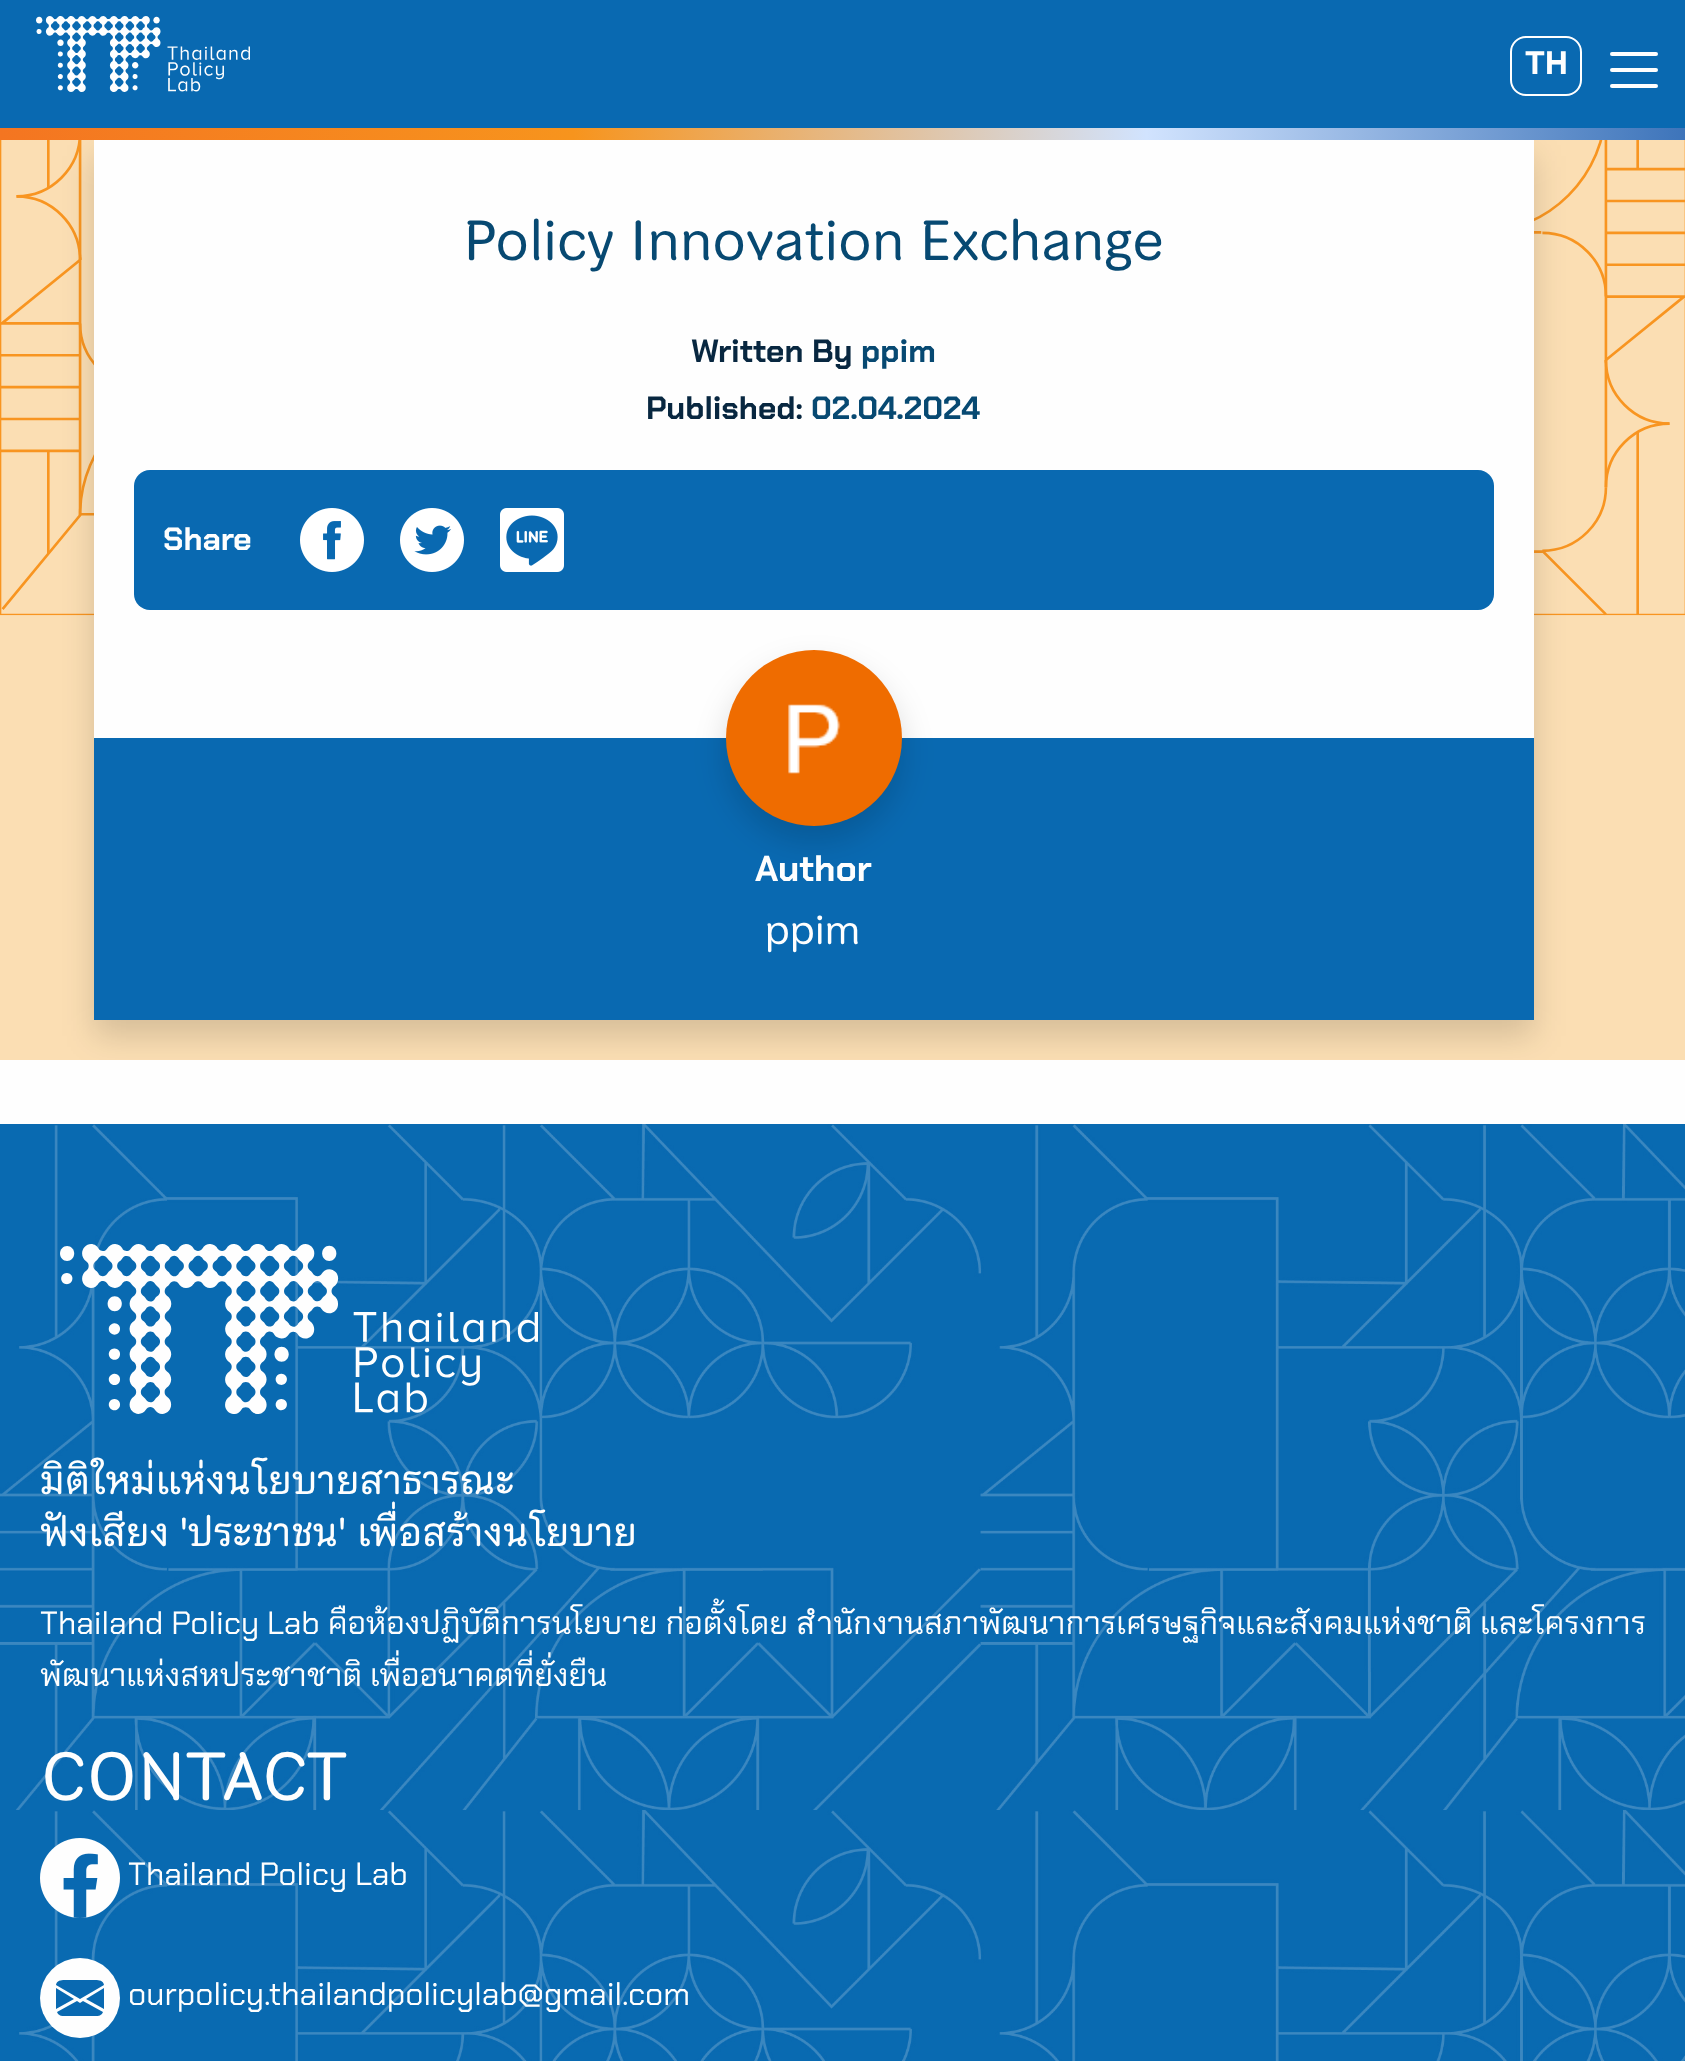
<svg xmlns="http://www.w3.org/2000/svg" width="1685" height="2061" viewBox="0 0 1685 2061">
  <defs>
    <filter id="blur1" x="-50%" y="-200%" width="200%" height="500%"><feGaussianBlur stdDeviation="16"/></filter>
    <linearGradient id="g1" gradientUnits="userSpaceOnUse" x1="0" y1="134" x2="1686" y2="134"><stop offset="0" stop-color="#f47521"/><stop offset="0.34" stop-color="#f7941d"/><stop offset="0.68" stop-color="#d1e3fe"/><stop offset="1" stop-color="#3d74ba"/></linearGradient>
  </defs>
  <rect width="100%" height="100%" fill="#fbdeb3"/>
  <image x="0" y="140" width="1685" height="476" href="img1.png"/>
  <rect x="94" y="156" width="1440" height="880" fill="#000000" fill-opacity="0.15" filter="url(#blur1)"/>
  <rect x="0" y="0" width="1685" height="128" fill="#0969b1"/>
  <image x="36" y="16" width="214" height="76" href="img2.png"/>
  <rect x="1511" y="37" width="70" height="58" rx="15" fill="none" stroke="#ffffff" stroke-width="2"/>
  <text x="1525" y="74" font-family="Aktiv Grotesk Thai" font-size="32" font-weight="bold" fill="#fefefe">TH</text>
  <rect x="1610" y="68" width="48" height="4" rx="2" fill="#fefefe"/>
  <rect x="1610" y="52" width="48" height="4" rx="2" fill="#fefefe"/>
  <rect x="1610" y="84" width="48" height="4" rx="2" fill="#fefefe"/>
  <rect x="0" y="128" width="1685" height="12" fill="url(#g1)"/>
  <rect x="94" y="140" width="1440" height="598" fill="#fefefe"/>
  <text x="463" y="260" font-family="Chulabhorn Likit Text" font-size="56" fill="#074972">Policy Innovation Exchange</text>
  <text x="691" y="362" font-family="Chakra Petch" font-size="32" font-weight="bold" fill="#082740">Written By</text>
  <text x="861" y="362" font-family="Chakra Petch" font-size="32" font-weight="bold" fill="#074972">ppim</text>
  <text x="646" y="419" font-family="Chakra Petch" font-size="32" font-weight="bold" fill="#082740">Published:</text>
  <text x="811" y="419" font-family="Chakra Petch" font-size="32" font-weight="bold" fill="#074972">02.04.2024</text>
  <rect x="134" y="470" width="1360" height="140" rx="16" fill="#0969b1"/>
  <text x="163" y="550" font-family="Chakra Petch" font-size="32" font-weight="bold" fill="#fefefe">Share</text>
  <image x="300" y="508" width="64" height="64" href="img3.png"/>
  <image x="400" y="508" width="64" height="64" href="img4.png"/>
  <image x="500" y="508" width="64" height="64" href="img5.png"/>
  <rect x="94" y="738" width="1440" height="282" fill="#0969b1"/>
  <rect x="726" y="666" width="176" height="176" rx="88" fill="#000000" fill-opacity="0.15" filter="url(#blur1)"/>
  <image x="726" y="650" width="176" height="176" href="img6.png"/>
  <text x="755" y="881" font-family="Chakra Petch" font-size="36" font-weight="bold" fill="#fefefe">Author</text>
  <text x="765" y="944" font-family="Chulabhorn Likit Text" font-size="40.5" fill="#fefefe">ppim</text>
  <rect x="0" y="1060" width="1685" height="64" fill="#fefefe"/>
  <image x="0" y="1124" width="1685" height="937" href="img7.png"/>
  <image x="60" y="1244" width="478" height="170" href="img8.png"/>
  <text x="40" y="1494" font-family="Chulabhorn Likit Text" font-size="40" fill="#fefefe">มิติใหม่แห่งนโยบายสาธารณะ</text>
  <text x="40" y="1546" font-family="Chulabhorn Likit Text" font-size="40" fill="#fefefe">ฟังเสียง 'ประชาชน' เพื่อสร้างนโยบาย</text>
  <text x="40" y="1634" font-family="Chakra Petch" font-size="32" fill="#fefefe">Thailand Policy Lab คือห้องปฏิบัติการนโยบาย ก่อตั้งโดย สำนักงานสภาพัฒนาการเศรษฐกิจและสังคมแห่งชาติ และโครงการ</text>
  <text x="40" y="1686" font-family="Chakra Petch" font-size="32" fill="#fefefe">พัฒนาแห่งสหประชาชาติ เพื่ออนาคตที่ยั่งยืน</text>
  <text x="40" y="1800" font-family="Chulabhorn Likit Text" font-size="67.5" fill="#fefefe">CONTACT</text>
  <image x="40" y="1838" width="80" height="80" href="img9.png"/>
  <text x="128" y="1885" font-family="Chakra Petch" font-size="32" fill="#fefefe">Thailand Policy Lab</text>
  <circle cx="80" cy="1998" r="40" fill="#fefefe"/>
  <path d="M56 1985L80 1999L104 1985C103 1979 96 1980 92 1980H68C64 1980 57 1979 56 1985ZM104 1988L86 1999L104 2009ZM103 2012L83 2001L80 2003L77 2001L57 2012C59 2017 64 2016 68 2016H92C96 2016 101 2017 103 2012ZM56 2009L74 1999L56 1988Z" fill="#0969b1"/>
  <text x="128" y="2005" font-family="Chakra Petch" font-size="32" fill="#fefefe">ourpolicy.thailandpolicylab@gmail.com</text>
</svg>
